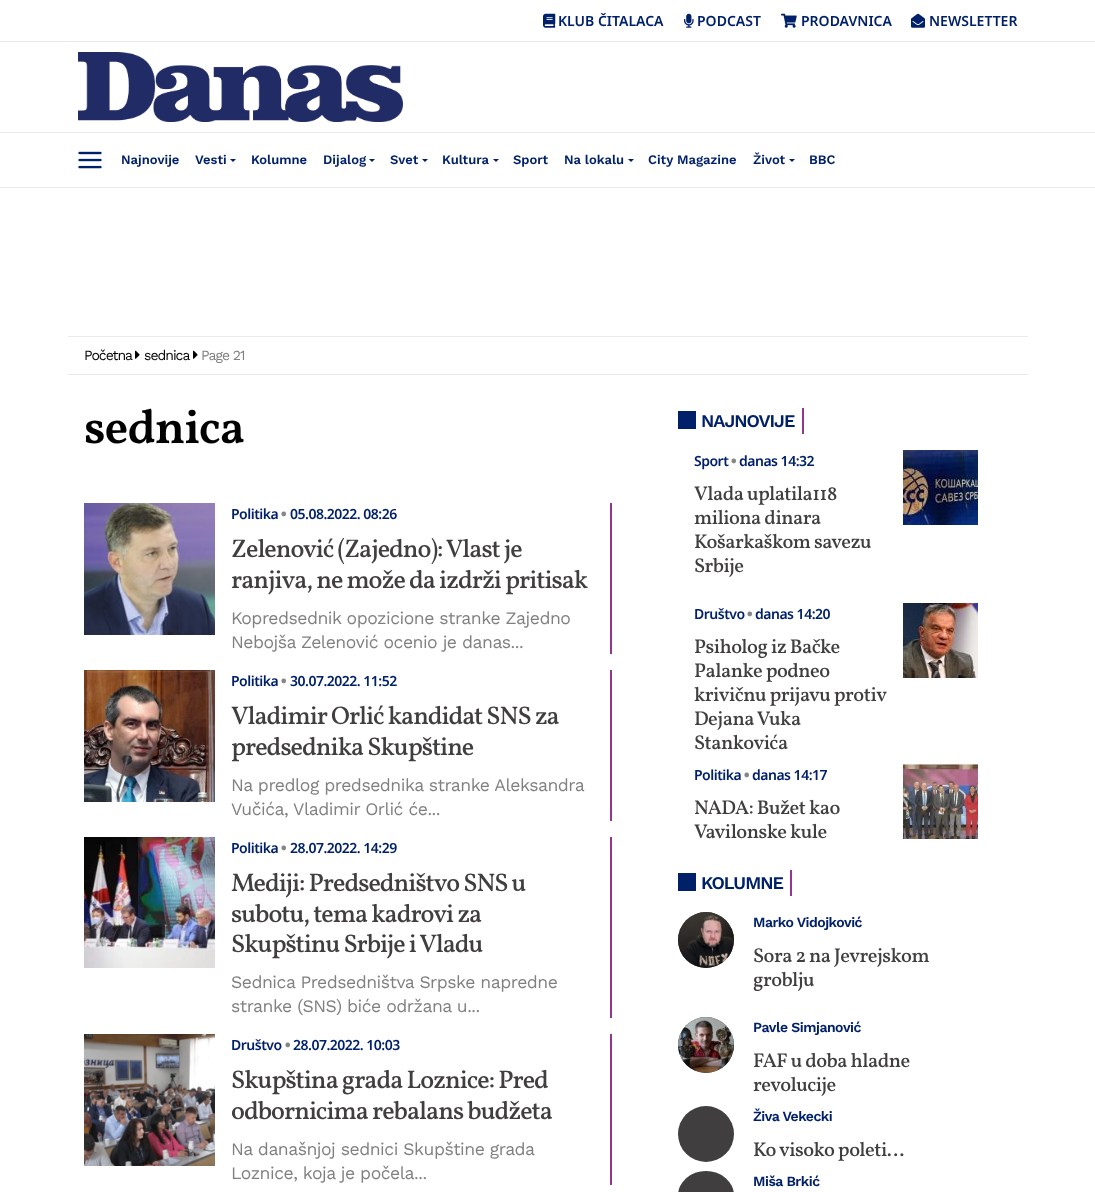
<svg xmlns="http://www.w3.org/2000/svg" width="1095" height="1192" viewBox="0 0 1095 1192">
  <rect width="100%" height="100%" fill="#ffffff"/>
  <rect x="0" y="41" width="1095" height="1" fill="#e9eaea"/>
  <image x="543" y="13" width="13" height="15" href="img1.png"/>
  <text x="558" y="26" font-family="Noto Sans" font-size="14" font-weight="600" fill="#002169">KLUB ČITALACA</text>
  <image x="684" y="13" width="10" height="15" href="img2.png"/>
  <text x="697" y="26" font-family="Noto Sans" font-size="14" font-weight="600" fill="#002169">PODCAST</text>
  <image x="781" y="13" width="16" height="15" href="img3.png"/>
  <text x="801" y="26" font-family="Noto Sans" font-size="14" font-weight="600" fill="#002169">PRODAVNICA</text>
  <image x="911" y="13" width="14" height="15" href="img4.png"/>
  <text x="929" y="26" font-family="Noto Sans" font-size="14" font-weight="600" fill="#002169">NEWSLETTER</text>
  <rect x="0" y="132" width="1095" height="1" fill="#e9eaea"/>
  <image x="78" y="52" width="325" height="70" href="img5.png"/>
  <rect x="0" y="187" width="1095" height="1" fill="#e9eaea"/>
  <image x="78" y="151" width="24" height="18" href="img6.png"/>
  <text x="121" y="164" font-family="Work Sans" font-size="13" font-weight="600" fill="#002169">Najnovije</text>
  <text x="195" y="164" font-family="Work Sans" font-size="13" font-weight="600" fill="#002169">Vesti</text>
  <path d="M230 159H236L233 162Z" fill="#002169"/>
  <text x="251" y="164" font-family="Work Sans" font-size="13" font-weight="600" fill="#002169">Kolumne</text>
  <text x="323" y="164" font-family="Work Sans" font-size="13" font-weight="600" fill="#002169">Dijalog</text>
  <path d="M369 159H375L372 162Z" fill="#002169"/>
  <text x="390" y="164" font-family="Work Sans" font-size="13" font-weight="600" fill="#002169">Svet</text>
  <path d="M422 159H428L425 162Z" fill="#002169"/>
  <text x="442" y="164" font-family="Work Sans" font-size="13" font-weight="600" fill="#002169">Kultura</text>
  <path d="M493 159H499L496 162Z" fill="#002169"/>
  <text x="513" y="164" font-family="Work Sans" font-size="13" font-weight="600" fill="#002169">Sport</text>
  <text x="564" y="164" font-family="Work Sans" font-size="13" font-weight="600" fill="#002169">Na lokalu</text>
  <path d="M628 159H634L631 162Z" fill="#002169"/>
  <text x="648" y="164" font-family="Work Sans" font-size="13" font-weight="600" fill="#002169">City Magazine</text>
  <text x="753" y="164" font-family="Work Sans" font-size="13" font-weight="600" fill="#002169">Život</text>
  <path d="M789 159H795L792 162Z" fill="#002169"/>
  <text x="809" y="164" font-family="Work Sans" font-size="13" font-weight="600" fill="#002169">BBC</text>
  <rect x="68" y="336" width="960" height="1" fill="#e9eaea"/>
  <rect x="68" y="374" width="960" height="1" fill="#e9eaea"/>
  <text x="84" y="360" font-family="Work Sans" font-size="14" letter-spacing="-1" fill="#000000">Početna</text>
  <image x="135" y="350" width="5" height="9" href="img7.png"/>
  <text x="144" y="360" font-family="Work Sans" font-size="14" letter-spacing="-1" fill="#000000">sednica</text>
  <image x="193" y="350" width="5" height="9" href="img7.png"/>
  <text x="201" y="360" font-family="Work Sans" font-size="14" letter-spacing="-1" fill="#808080">Page 21</text>
  <text x="84" y="443" font-family="Vollkorn" font-size="48" font-weight="600" letter-spacing="-1" fill="#000000">sednica</text>
  <rect x="610" y="503" width="2" height="151" fill="#94368e"/>
  <image x="84" y="503" width="131" height="132" href="img8.png"/>
  <text x="231" y="519" font-family="Noto Sans" font-size="14" font-weight="600" letter-spacing="-0.5" fill="#002169">Politika</text>
  <text x="281" y="519" font-family="Noto Sans" font-size="14" font-weight="900" letter-spacing="-0.5" fill="#868686">•</text>
  <text x="290" y="519" font-family="Noto Sans" font-size="14" font-weight="600" letter-spacing="-0.5" fill="#002169">05.08.2022. 08:26</text>
  <text x="231" y="557" font-family="Vollkorn" font-size="25.6" font-weight="500" letter-spacing="-1" fill="#403e3e">Zelenović (Zajedno): Vlast je</text>
  <text x="231" y="588" font-family="Vollkorn" font-size="25.6" font-weight="500" letter-spacing="-1" fill="#403e3e">ranjiva, ne može da izdrži pritisak</text>
  <text x="231" y="624" font-family="Work Sans" font-size="17.6" letter-spacing="-0.5" fill="#808080">Kopredsednik opozicione stranke Zajedno</text>
  <text x="231" y="648" font-family="Work Sans" font-size="17.6" letter-spacing="-0.5" fill="#808080">Nebojša Zelenović ocenio je danas...</text>
  <rect x="610" y="670" width="2" height="151" fill="#94368e"/>
  <image x="84" y="670" width="131" height="132" href="img9.png"/>
  <text x="231" y="686" font-family="Noto Sans" font-size="14" font-weight="600" letter-spacing="-0.5" fill="#002169">Politika</text>
  <text x="281" y="686" font-family="Noto Sans" font-size="14" font-weight="900" letter-spacing="-0.5" fill="#868686">•</text>
  <text x="290" y="686" font-family="Noto Sans" font-size="14" font-weight="600" letter-spacing="-0.5" fill="#002169">30.07.2022. 11:52</text>
  <text x="231" y="724" font-family="Vollkorn" font-size="25.6" font-weight="500" letter-spacing="-1" fill="#403e3e">Vladimir Orlić kandidat SNS za</text>
  <text x="231" y="755" font-family="Vollkorn" font-size="25.6" font-weight="500" letter-spacing="-1" fill="#403e3e">predsednika Skupštine</text>
  <text x="231" y="791" font-family="Work Sans" font-size="17.6" letter-spacing="-0.5" fill="#808080">Na predlog predsednika stranke Aleksandra</text>
  <text x="231" y="815" font-family="Work Sans" font-size="17.6" letter-spacing="-0.5" fill="#808080">Vučića, Vladimir Orlić će...</text>
  <rect x="610" y="837" width="2" height="181" fill="#94368e"/>
  <image x="84" y="837" width="131" height="131" href="img10.png"/>
  <text x="231" y="853" font-family="Noto Sans" font-size="14" font-weight="600" letter-spacing="-0.5" fill="#002169">Politika</text>
  <text x="281" y="853" font-family="Noto Sans" font-size="14" font-weight="900" letter-spacing="-0.5" fill="#868686">•</text>
  <text x="290" y="853" font-family="Noto Sans" font-size="14" font-weight="600" letter-spacing="-0.5" fill="#002169">28.07.2022. 14:29</text>
  <text x="231" y="891" font-family="Vollkorn" font-size="25.6" font-weight="500" letter-spacing="-1" fill="#403e3e">Mediji: Predsedništvo SNS u</text>
  <text x="231" y="922" font-family="Vollkorn" font-size="25.6" font-weight="500" letter-spacing="-1" fill="#403e3e">subotu, tema kadrovi za</text>
  <text x="231" y="952" font-family="Vollkorn" font-size="25.6" font-weight="500" letter-spacing="-1" fill="#403e3e">Skupštinu Srbije i Vladu</text>
  <text x="231" y="988" font-family="Work Sans" font-size="17.6" letter-spacing="-0.5" fill="#808080">Sednica Predsedništva Srpske napredne</text>
  <text x="231" y="1012" font-family="Work Sans" font-size="17.6" letter-spacing="-0.5" fill="#808080">stranke (SNS) biće održana u...</text>
  <rect x="610" y="1034" width="2" height="151" fill="#94368e"/>
  <image x="84" y="1034" width="131" height="132" href="img11.png"/>
  <text x="231" y="1050" font-family="Noto Sans" font-size="14" font-weight="600" letter-spacing="-0.5" fill="#002169">Društvo</text>
  <text x="285" y="1050" font-family="Noto Sans" font-size="14" font-weight="900" letter-spacing="-0.5" fill="#868686">•</text>
  <text x="293" y="1050" font-family="Noto Sans" font-size="14" font-weight="600" letter-spacing="-0.5" fill="#002169">28.07.2022. 10:03</text>
  <text x="231" y="1088" font-family="Vollkorn" font-size="25.6" font-weight="500" letter-spacing="-1" fill="#403e3e">Skupština grada Loznice: Pred</text>
  <text x="231" y="1119" font-family="Vollkorn" font-size="25.6" font-weight="500" letter-spacing="-1" fill="#403e3e">odbornicima rebalans budžeta</text>
  <text x="231" y="1155" font-family="Work Sans" font-size="17.6" letter-spacing="-0.5" fill="#808080">Na današnjoj sednici Skupštine grada</text>
  <text x="231" y="1179" font-family="Work Sans" font-size="17.6" letter-spacing="-0.5" fill="#808080">Loznice, koja je počela...</text>
  <rect x="802" y="408" width="2" height="26" fill="#94368e"/>
  <rect x="678" y="411" width="18" height="18" fill="#002169"/>
  <text x="701" y="427" font-family="Work Sans" font-size="18" font-weight="600" letter-spacing="-1" fill="#002169">NAJNOVIJE</text>
  <text x="694" y="466" font-family="Noto Sans" font-size="14" font-weight="600" letter-spacing="-0.5" fill="#002169">Sport</text>
  <text x="731" y="466" font-family="Noto Sans" font-size="14" font-weight="900" letter-spacing="-0.5" fill="#868686">•</text>
  <text x="739" y="466" font-family="Noto Sans" font-size="14" font-weight="600" letter-spacing="-0.5" fill="#002169">danas 14:32</text>
  <text x="694" y="500" font-family="Vollkorn" font-size="20" font-weight="500" letter-spacing="-0.5" fill="#403e3e">Vlada uplatila118</text>
  <text x="694" y="524" font-family="Vollkorn" font-size="20" font-weight="500" letter-spacing="-0.5" fill="#403e3e">miliona dinara</text>
  <text x="694" y="548" font-family="Vollkorn" font-size="20" font-weight="500" letter-spacing="-0.5" fill="#403e3e">Košarkaškom savezu</text>
  <text x="694" y="572" font-family="Vollkorn" font-size="20" font-weight="500" letter-spacing="-0.5" fill="#403e3e">Srbije</text>
  <image x="903" y="450" width="75" height="75" href="img12.png"/>
  <text x="694" y="619" font-family="Noto Sans" font-size="14" font-weight="600" letter-spacing="-0.5" fill="#002169">Društvo</text>
  <text x="747" y="619" font-family="Noto Sans" font-size="14" font-weight="900" letter-spacing="-0.5" fill="#868686">•</text>
  <text x="755" y="619" font-family="Noto Sans" font-size="14" font-weight="600" letter-spacing="-0.5" fill="#002169">danas 14:20</text>
  <text x="694" y="653" font-family="Vollkorn" font-size="20" font-weight="500" letter-spacing="-0.5" fill="#403e3e">Psiholog iz Bačke</text>
  <text x="694" y="677" font-family="Vollkorn" font-size="20" font-weight="500" letter-spacing="-0.5" fill="#403e3e">Palanke podneo</text>
  <text x="694" y="701" font-family="Vollkorn" font-size="20" font-weight="500" letter-spacing="-0.5" fill="#403e3e">krivičnu prijavu protiv</text>
  <text x="694" y="725" font-family="Vollkorn" font-size="20" font-weight="500" letter-spacing="-0.5" fill="#403e3e">Dejana Vuka</text>
  <text x="694" y="749" font-family="Vollkorn" font-size="20" font-weight="500" letter-spacing="-0.5" fill="#403e3e">Stankovića</text>
  <image x="903" y="603" width="75" height="75" href="img13.png"/>
  <text x="694" y="780" font-family="Noto Sans" font-size="14" font-weight="600" letter-spacing="-0.5" fill="#002169">Politika</text>
  <text x="744" y="780" font-family="Noto Sans" font-size="14" font-weight="900" letter-spacing="-0.5" fill="#868686">•</text>
  <text x="752" y="780" font-family="Noto Sans" font-size="14" font-weight="600" letter-spacing="-0.5" fill="#002169">danas 14:17</text>
  <text x="694" y="814" font-family="Vollkorn" font-size="20" font-weight="500" letter-spacing="-0.5" fill="#403e3e">NADA: Bužet kao</text>
  <text x="694" y="838" font-family="Vollkorn" font-size="20" font-weight="500" letter-spacing="-0.5" fill="#403e3e">Vavilonske kule</text>
  <image x="903" y="764" width="75" height="75" href="img14.png"/>
  <rect x="790" y="870" width="2" height="26" fill="#94368e"/>
  <rect x="678" y="873" width="18" height="18" fill="#002169"/>
  <text x="701" y="889" font-family="Work Sans" font-size="18" font-weight="600" letter-spacing="-1" fill="#002169">KOLUMNE</text>
  <circle cx="706" cy="940" r="28" fill="#403e3e"/>
  <image x="678" y="912" width="56" height="56" href="img15.png"/>
  <text x="753" y="927" font-family="Work Sans" font-size="14" font-weight="600" letter-spacing="-0.5" fill="#002169">Marko Vidojković</text>
  <text x="753" y="962" font-family="Vollkorn" font-size="20" font-weight="500" letter-spacing="-0.5" fill="#403e3e">Sora 2 na Jevrejskom</text>
  <text x="753" y="986" font-family="Vollkorn" font-size="20" font-weight="500" letter-spacing="-0.5" fill="#403e3e">groblju</text>
  <circle cx="706" cy="1045" r="28" fill="#403e3e"/>
  <image x="678" y="1017" width="56" height="56" href="img16.png"/>
  <text x="753" y="1032" font-family="Work Sans" font-size="14" font-weight="600" letter-spacing="-0.5" fill="#002169">Pavle Simjanović</text>
  <text x="753" y="1067" font-family="Vollkorn" font-size="20" font-weight="500" letter-spacing="-0.5" fill="#403e3e">FAF u doba hladne</text>
  <text x="753" y="1091" font-family="Vollkorn" font-size="20" font-weight="500" letter-spacing="-0.5" fill="#403e3e">revolucije</text>
  <circle cx="706" cy="1134" r="28" fill="#403e3e"/>
  <text x="753" y="1121" font-family="Work Sans" font-size="14" font-weight="600" letter-spacing="-0.5" fill="#002169">Živa Vekecki</text>
  <text x="753" y="1156" font-family="Vollkorn" font-size="20" font-weight="500" letter-spacing="-0.5" fill="#403e3e">Ko visoko poleti…</text>
  <rect x="678" y="1171" width="56" height="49" rx="28" fill="#403e3e"/>
  <text x="753" y="1186" font-family="Work Sans" font-size="14" font-weight="600" letter-spacing="-0.5" fill="#002169">Miša Brkić</text>
</svg>
